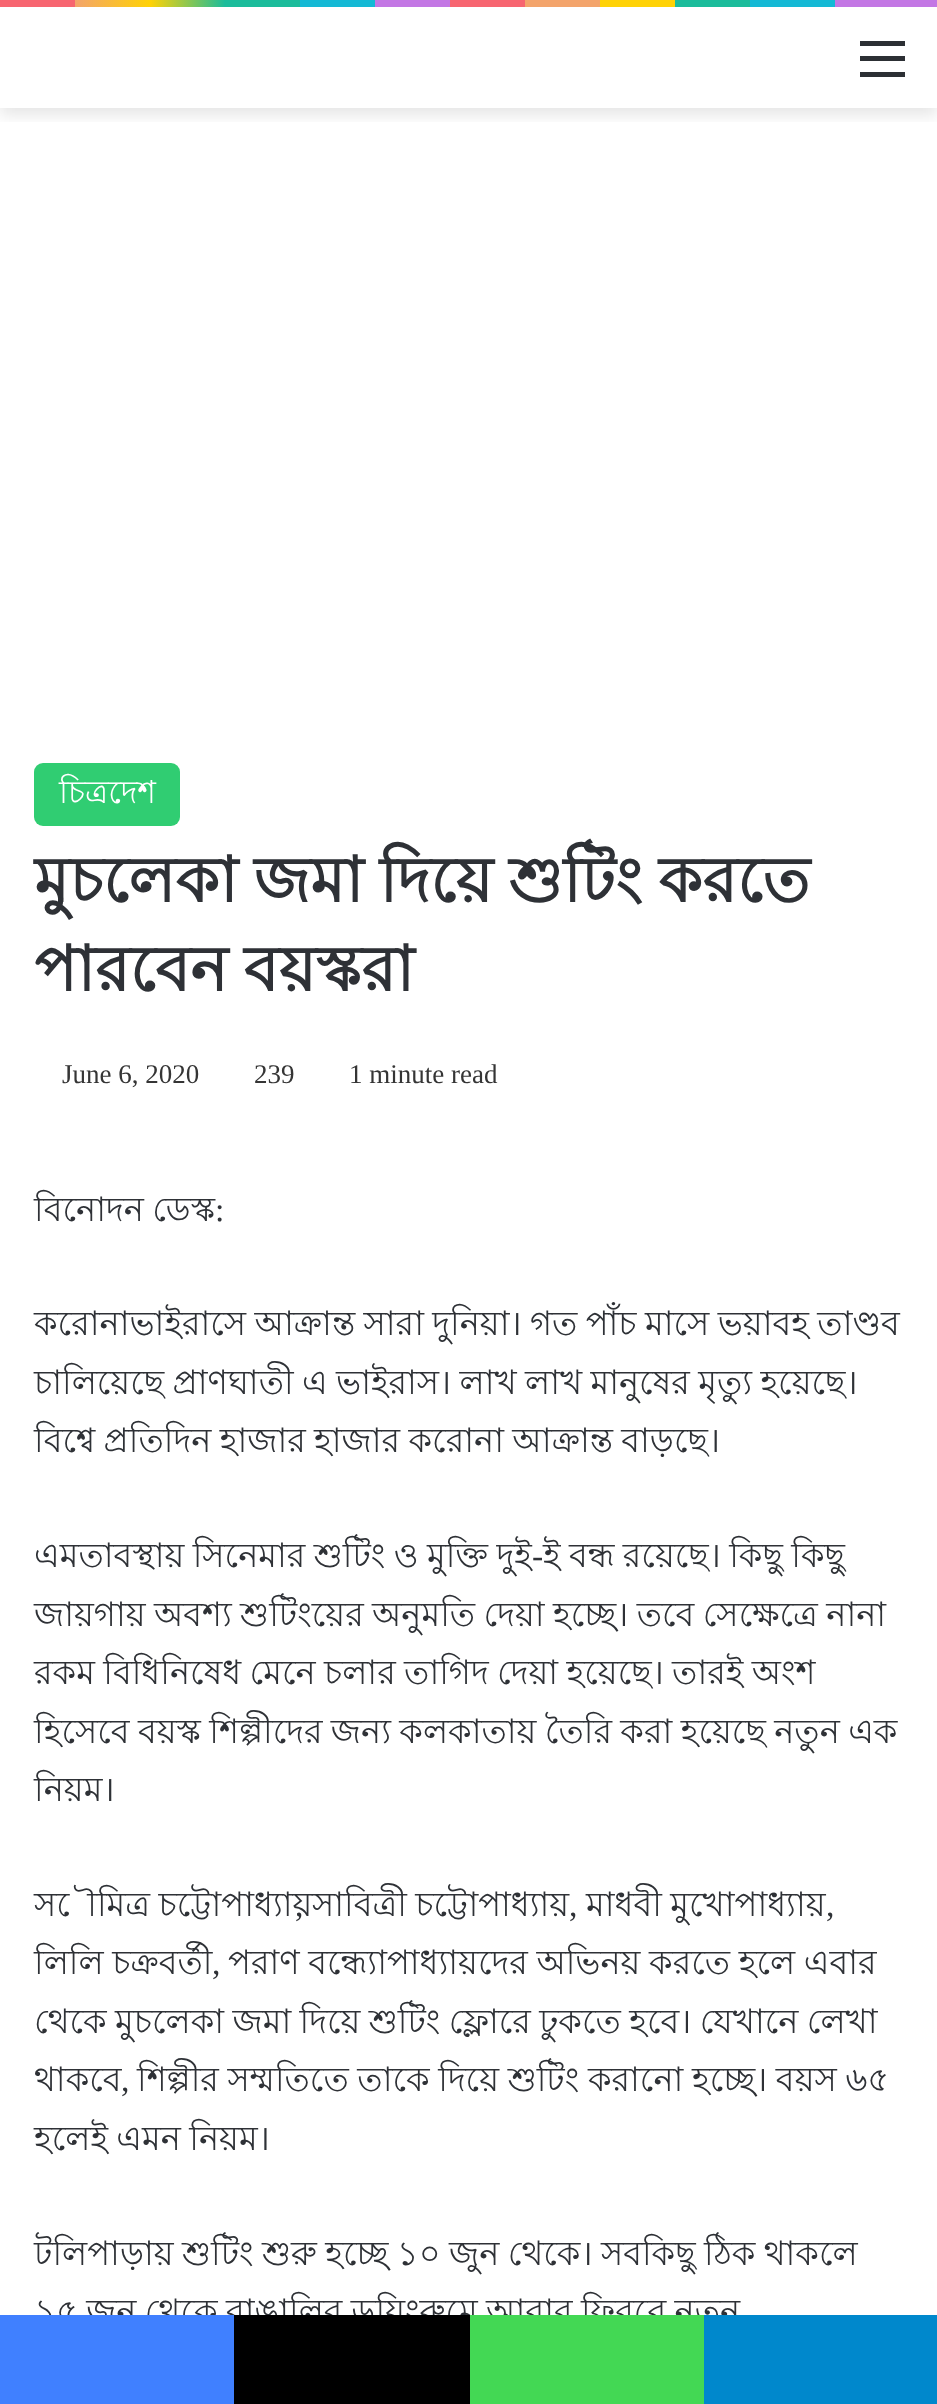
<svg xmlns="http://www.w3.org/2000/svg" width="937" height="2404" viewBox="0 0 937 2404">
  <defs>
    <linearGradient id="g1" gradientUnits="userSpaceOnUse" x1="0" y1="3.4" x2="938" y2="3.4"><stop offset="0" stop-color="#f76570"/><stop offset="0.08" stop-color="#f76570"/><stop offset="0.08" stop-color="#f3a46b"/><stop offset="0.16" stop-color="#ffd205"/><stop offset="0.24" stop-color="#1bbc9b"/><stop offset="0.32" stop-color="#1bbc9b"/><stop offset="0.32" stop-color="#14b9d5"/><stop offset="0.4" stop-color="#14b9d5"/><stop offset="0.4" stop-color="#c377e4"/><stop offset="0.48" stop-color="#c377e4"/><stop offset="0.48" stop-color="#f76570"/><stop offset="0.56" stop-color="#f76570"/><stop offset="0.56" stop-color="#f3a46b"/><stop offset="0.64" stop-color="#f3a46b"/><stop offset="0.64" stop-color="#ffd205"/><stop offset="0.72" stop-color="#ffd205"/><stop offset="0.72" stop-color="#1bbc9b"/><stop offset="0.8" stop-color="#1bbc9b"/><stop offset="0.8" stop-color="#14b9d5"/><stop offset="0.89" stop-color="#14b9d5"/><stop offset="0.89" stop-color="#c377e4"/><stop offset="1" stop-color="#c377e4"/></linearGradient>
    <clipPath id="clip1"><rect x="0" y="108" width="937" height="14"/></clipPath>
    <filter id="blur1" x="-50%" y="-200%" width="200%" height="500%"><feGaussianBlur stdDeviation="8"/></filter>
  </defs>
  <rect width="100%" height="100%" fill="#ffffff"/>
  <rect x="0" y="0" width="937" height="7" fill="url(#g1)"/>
  <g clip-path="url(#clip1)">
    <rect x="0" y="14" width="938" height="101" fill="#000000" fill-opacity="0.1" filter="url(#blur1)"/>
  </g>
  <rect x="860" y="56" width="45" height="5" fill="#2c2f34"/>
  <rect x="860" y="41" width="45" height="5" fill="#2c2f34"/>
  <rect x="860" y="72" width="45" height="5" fill="#2c2f34"/>
  <rect x="34" y="763" width="146" height="63" rx="9" fill="#30cd72"/>
  <text x="59" y="803" font-family="Lohit Bengali" font-size="31.5" fill="#ffffff">চিত্রদেশ</text>
  <text x="34" y="902" word-spacing="-1.5" font-family="Lohit Bengali" font-size="63" font-weight="bold" fill="#2e3136">মুচলেকা জমা দিয়ে শুটিং করতে</text>
  <text x="34" y="991" word-spacing="-1.5" font-family="Lohit Bengali" font-size="63" font-weight="bold" fill="#2e3136">পারবেন বয়স্করা</text>
  <text x="62" y="1083" font-family="Liberation Serif" font-size="27" fill="#353535">June 6, 2020</text>
  <text x="254" y="1083" font-family="Liberation Serif" font-size="27" fill="#353535">239</text>
  <text x="349" y="1083" font-family="Liberation Serif" font-size="27" fill="#353535">1 minute read</text>
  <text x="34" y="1221" word-spacing="-1" font-family="Lohit Bengali" font-size="33.75" fill="#2e3136">বিনোদন ডেস্ক</text>
  <text x="215" y="1221" font-family="Liberation Serif" font-size="33.75" fill="#2e3136">:</text>
  <text x="34" y="1335" word-spacing="-1" font-family="Lohit Bengali" font-size="33.75" fill="#2e3136">করোনাভাইরাসে আক্রান্ত সারা দুনিয়া। গত পাঁচ মাসে ভয়াবহ তাণ্ডব</text>
  <text x="34" y="1394" word-spacing="-1" font-family="Lohit Bengali" font-size="33.75" fill="#2e3136">চালিয়েছে প্রাণঘাতী এ ভাইরাস। লাখ লাখ মানুষের মৃত্যু হয়েছে।</text>
  <text x="34" y="1452" word-spacing="-1" font-family="Lohit Bengali" font-size="33.75" fill="#2e3136">বিশ্বে প্রতিদিন হাজার হাজার করোনা আক্রান্ত বাড়ছে।</text>
  <text x="34" y="1567" word-spacing="-1" font-family="Lohit Bengali" font-size="33.75" fill="#2e3136">এমতাবস্থায় সিনেমার শুটিং ও মুক্তি দুই</text>
  <text x="532" y="1567" font-family="Liberation Serif" font-size="33.75" fill="#2e3136">-</text>
  <text x="543" y="1567" word-spacing="-1" font-family="Lohit Bengali" font-size="33.75" fill="#2e3136">ই বন্ধ রয়েছে। কিছু কিছু</text>
  <text x="34" y="1626" word-spacing="-1" font-family="Lohit Bengali" font-size="33.75" fill="#2e3136">জায়গায় অবশ্য শুটিংয়ের অনুমতি দেয়া হচ্ছে। তবে সেক্ষেত্রে নানা</text>
  <text x="34" y="1684" word-spacing="-1" font-family="Lohit Bengali" font-size="33.75" fill="#2e3136">রকম বিধিনিষেধ মেনে চলার তাগিদ দেয়া হয়েছে। তারই অংশ</text>
  <text x="34" y="1743" word-spacing="-1" font-family="Lohit Bengali" font-size="33.75" fill="#2e3136">হিসেবে বয়স্ক শিল্পীদের জন্য কলকাতায় তৈরি করা হয়েছে নতুন এক</text>
  <text x="34" y="1801" font-family="Lohit Bengali" font-size="33.75" fill="#2e3136">নিয়ম।</text>
  <text x="34" y="1916" word-spacing="-1" font-family="Lohit Bengali" font-size="33.75" fill="#2e3136">সৌমিত্র চট্টোপাধ্যায়</text>
  <text x="295" y="1916" font-family="Liberation Serif" font-size="33.75" fill="#2e3136">,</text>
  <text x="312" y="1916" word-spacing="-1" font-family="Lohit Bengali" font-size="33.75" fill="#2e3136">সাবিত্রী চট্টোপাধ্যায়</text>
  <text x="569" y="1916" font-family="Liberation Serif" font-size="33.75" fill="#2e3136">,</text>
  <text x="586" y="1916" word-spacing="-1" font-family="Lohit Bengali" font-size="33.75" fill="#2e3136">মাধবী মুখোপাধ্যায়</text>
  <text x="826" y="1916" font-family="Liberation Serif" font-size="33.75" fill="#2e3136">,</text>
  <text x="34" y="1974" word-spacing="-0.75" font-family="Lohit Bengali" font-size="33.75" fill="#2e3136">লিলি চক্রবর্তী</text>
  <text x="212" y="1974" font-family="Liberation Serif" font-size="33.75" fill="#2e3136">,</text>
  <text x="228" y="1974" word-spacing="-0.75" font-family="Lohit Bengali" font-size="33.75" fill="#2e3136">পরাণ বন্ধ্যোপাধ্যায়দের অভিনয় করতে হলে এবার</text>
  <text x="34" y="2033" word-spacing="-1" font-family="Lohit Bengali" font-size="33.75" fill="#2e3136">থেকে মুচলেকা জমা দিয়ে শুটিং ফ্লোরে ঢুকতে হবে। যেখানে লেখা</text>
  <text x="34" y="2091" font-family="Lohit Bengali" font-size="33.75" fill="#2e3136">থাকবে</text>
  <text x="121" y="2091" font-family="Liberation Serif" font-size="33.75" fill="#2e3136">,</text>
  <text x="137" y="2091" word-spacing="-0.75" font-family="Lohit Bengali" font-size="33.75" fill="#2e3136">শিল্পীর সম্মতিতে তাকে দিয়ে শুটিং করানো হচ্ছে। বয়স ৬৫</text>
  <text x="34" y="2150" word-spacing="-1" font-family="Lohit Bengali" font-size="33.75" fill="#2e3136">হলেই এমন নিয়ম।</text>
  <text x="34" y="2265" word-spacing="-1" font-family="Lohit Bengali" font-size="33.75" fill="#2e3136">টলিপাড়ায় শুটিং শুরু হচ্ছে ১০ জুন থেকে। সবকিছু ঠিক থাকলে</text>
  <text x="34" y="2323" word-spacing="-1" font-family="Lohit Bengali" font-size="33.75" fill="#2e3136">১৫ জুন থেকে বাঙালির ড্রয়িংরুমে আবার ফিরবে নতুন</text>
  <rect x="0" y="2315" width="234" height="89" fill="#4080ff"/>
  <rect x="234" y="2315" width="236" height="89" fill="#000000"/>
  <rect x="470" y="2315" width="234" height="89" fill="#43d854"/>
  <rect x="704" y="2315" width="233" height="89" fill="#0088cc"/>
</svg>
